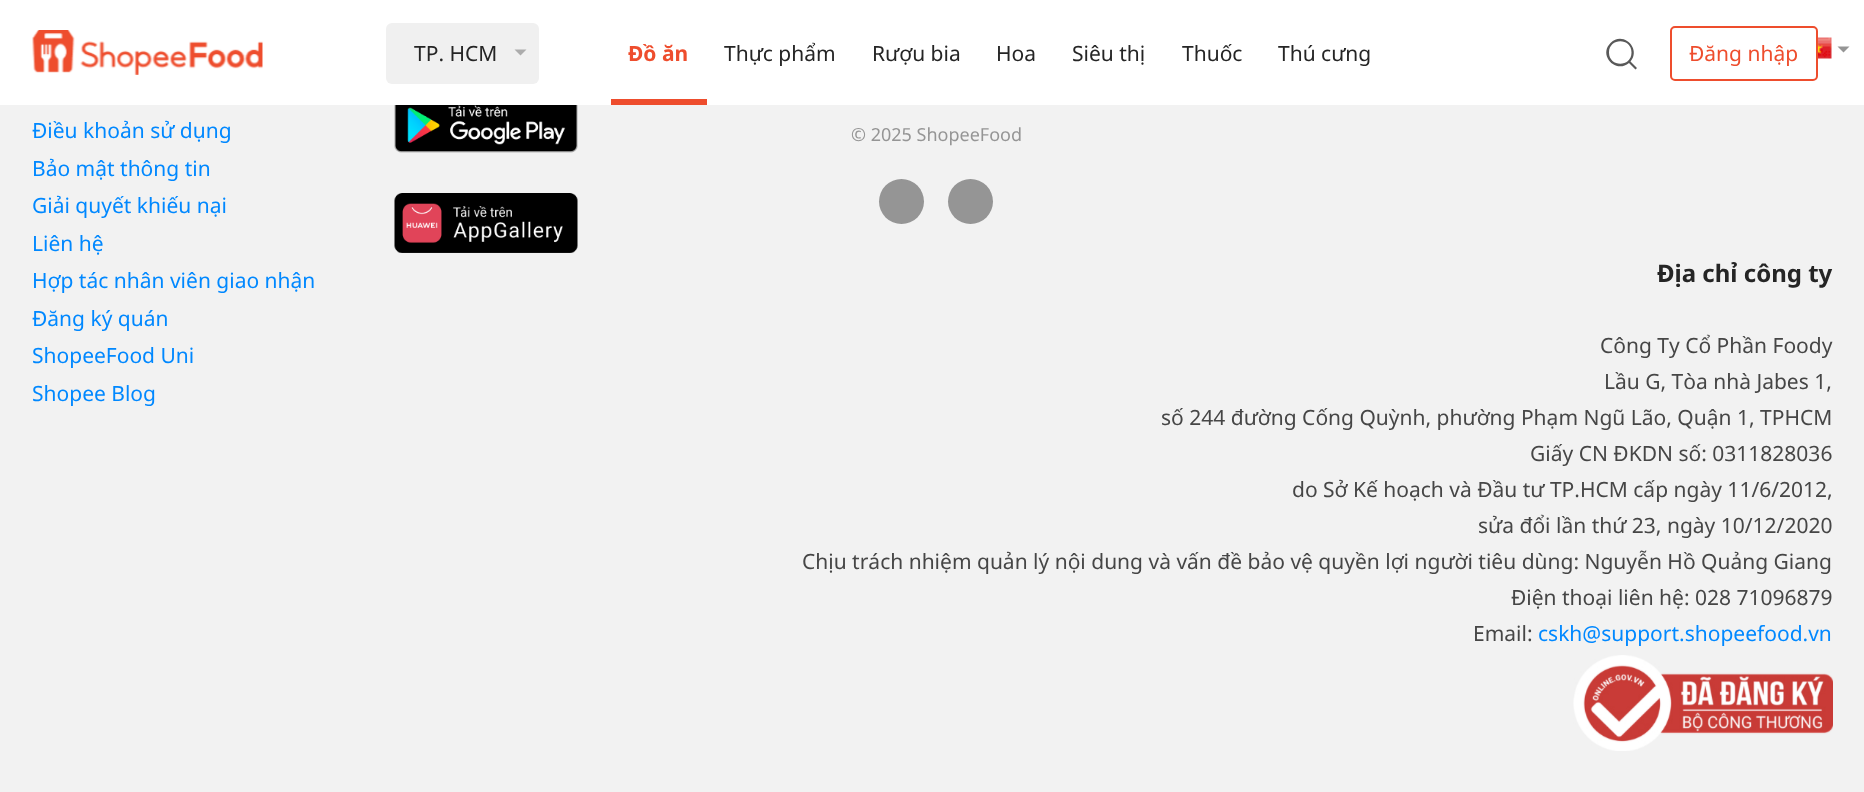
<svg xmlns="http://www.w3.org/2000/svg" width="1864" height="792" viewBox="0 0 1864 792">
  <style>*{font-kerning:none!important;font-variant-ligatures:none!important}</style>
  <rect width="100%" height="100%" fill="#f2f2f2"/>
  <rect x="0" y="0" width="1864" height="105" fill="#ffffff"/>
  <image x="32" y="30" width="231" height="45" href="img1.png"/>
  <rect x="386" y="23" width="153" height="61" rx="6" fill="#f0f0f0"/>
  <text x="414" y="61" font-family="Noto Sans" font-size="21" fill="#252525">TP. HCM</text>
  <path d="M514.5 49.5H526.5L520.5 55.5Z" fill="#acacac"/>
  <text x="628" y="61" font-family="Noto Sans" font-size="21" font-weight="bold" fill="#ee4d2d">Đồ ăn</text>
  <rect x="611" y="99" width="96" height="6" fill="#ee4d2d"/>
  <text x="724" y="61" font-family="Noto Sans" font-size="21" fill="#252525">Thực phẩm</text>
  <text x="872" y="61" font-family="Noto Sans" font-size="21" fill="#252525">Rượu bia</text>
  <text x="996" y="61" font-family="Noto Sans" font-size="21" fill="#252525">Hoa</text>
  <text x="1072" y="61" font-family="Noto Sans" font-size="21" fill="#252525">Siêu thị</text>
  <text x="1182" y="61" font-family="Noto Sans" font-size="21" fill="#252525">Thuốc</text>
  <text x="1278" y="61" font-family="Noto Sans" font-size="21" fill="#252525">Thú cưng</text>
  <path d="M1629 63C1616 74 1598 55.5 1610.5 43C1623 30.5 1641.5 48.5 1630.5 61.5L1637 68L1635.5 69.5ZM1631.5 52.5C1631.5 67.5 1609 67.5 1609 52.5C1609 37.5 1631.5 37.5 1631.5 52.5Z" fill="#595959" fill-rule="evenodd"/>
  <rect x="1671" y="27" width="146" height="53" rx="4" fill="none" stroke="#ee4d2d" stroke-width="2"/>
  <text x="1689" y="61" font-family="Noto Sans" font-size="21" fill="#ee4d2d">Đăng nhập</text>
  <image x="1818" y="37" width="14" height="22" href="img2.png"/>
  <path d="M1837.5 46.5H1849.5L1843.5 52.5Z" fill="#959595"/>
  <text x="32" y="138" font-family="Noto Sans" font-size="21" fill="#0088ff">Điều khoản sử dụng</text>
  <text x="32" y="176" font-family="Noto Sans" font-size="21" fill="#0088ff">Bảo mật thông tin</text>
  <text x="32" y="213" font-family="Noto Sans" font-size="21" fill="#0088ff">Giải quyết khiếu nại</text>
  <text x="32" y="251" font-family="Noto Sans" font-size="21" fill="#0088ff">Liên hệ</text>
  <text x="32" y="288" font-family="Noto Sans" font-size="21" fill="#0088ff">Hợp tác nhân viên giao nhận</text>
  <text x="32" y="326" font-family="Noto Sans" font-size="21" fill="#0088ff">Đăng ký quán</text>
  <text x="32" y="363" font-family="Noto Sans" font-size="21" fill="#0088ff">ShopeeFood Uni</text>
  <text x="32" y="401" font-family="Noto Sans" font-size="21" fill="#0088ff">Shopee Blog</text>
  <image x="394" y="105" width="184" height="48" href="img3.png"/>
  <image x="394" y="193" width="184" height="60" href="img4.png"/>
  <text x="851" y="141" font-family="Noto Sans" font-size="18" fill="#959595">© 2025 ShopeeFood</text>
  <circle cx="901.5" cy="201.5" r="22.5" fill="#959595"/>
  <circle cx="970.5" cy="201.5" r="22.5" fill="#959595"/>
  <text x="1657" y="282" font-family="Noto Sans" font-size="24" font-weight="bold" fill="#252525">Địa chỉ công ty</text>
  <text x="1600" y="353" font-family="Noto Sans" font-size="21" fill="#464646">Công Ty Cổ Phần Foody</text>
  <text x="1604" y="389" font-family="Noto Sans" font-size="21" fill="#464646">Lầu G, Tòa nhà Jabes 1,</text>
  <text x="1161" y="425" font-family="Noto Sans" font-size="21" fill="#464646">số 244 đường Cống Quỳnh, phường Phạm Ngũ Lão, Quận 1, TPHCM</text>
  <text x="1530" y="461" font-family="Noto Sans" font-size="21" fill="#464646">Giấy CN ĐKDN số: 0311828036</text>
  <text x="1292" y="497" font-family="Noto Sans" font-size="21" fill="#464646">do Sở Kế hoạch và Đầu tư TP.HCM cấp ngày 11/6/2012,</text>
  <text x="1478" y="533" font-family="Noto Sans" font-size="21" fill="#464646">sửa đổi lần thứ 23, ngày 10/12/2020</text>
  <text x="802" y="569" font-family="Noto Sans" font-size="21" fill="#464646">Chịu trách nhiệm quản lý nội dung và vấn đề bảo vệ quyền lợi người tiêu dùng: Nguyễn Hồ Quảng Giang</text>
  <text x="1511" y="605" font-family="Noto Sans" font-size="21" fill="#464646">Điện thoại liên hệ: 028 71096879</text>
  <text x="1473" y="641" font-family="Noto Sans" font-size="21" fill="#464646">Email:</text>
  <text x="1538" y="641" font-family="Noto Sans" font-size="21" fill="#0088ff">cskh@support.shopeefood.vn</text>
  <image x="1573" y="655" width="260" height="96" href="img5.png"/>
</svg>
